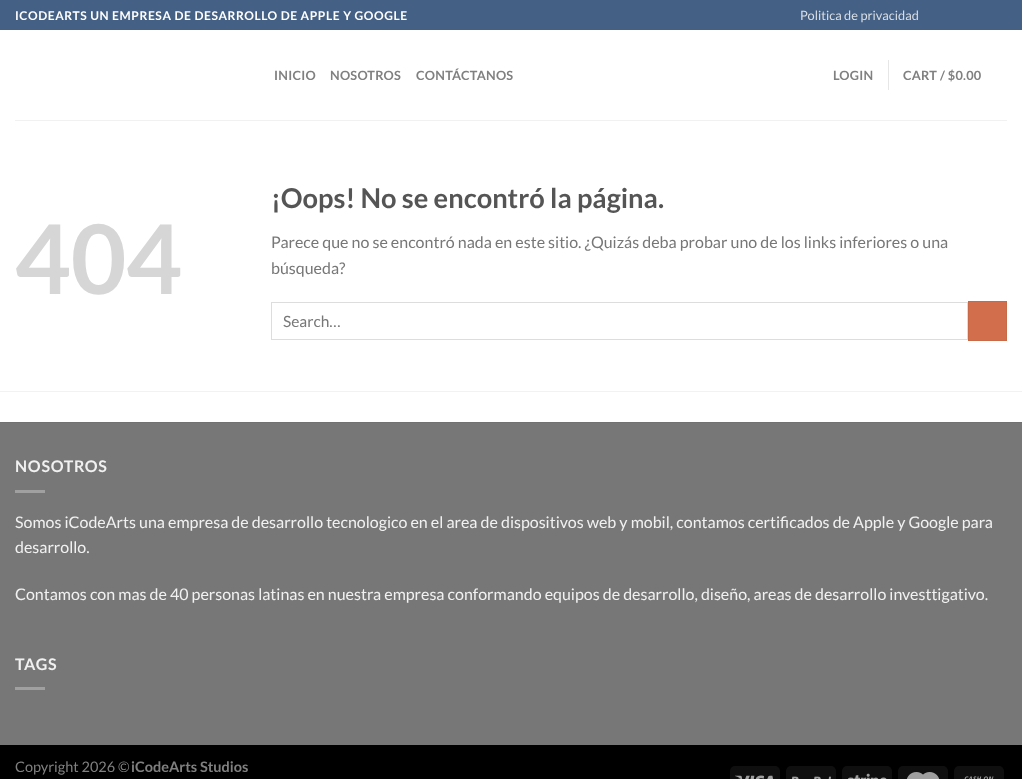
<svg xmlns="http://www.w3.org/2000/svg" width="1022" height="779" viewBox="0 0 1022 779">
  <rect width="100%" height="100%" fill="#ffffff"/>
  <rect x="0" y="0" width="1022" height="30" fill="#446084"/>
  <text x="15" y="20" font-family="Lato" font-size="12" font-weight="bold" letter-spacing="0.6" fill="#ffffff">ICODEARTS UN EMPRESA DE DESARROLLO DE APPLE Y GOOGLE</text>
  <text x="800" y="20" font-family="Lato" font-size="12.75" fill="#dadfe6">Politica de privacidad</text>
  <text x="274" y="80" font-family="Lato" font-size="12.75" font-weight="bold" letter-spacing="0.25" fill="#808080">INICIO</text>
  <text x="330" y="80" font-family="Lato" font-size="12.75" font-weight="bold" letter-spacing="0.25" fill="#808080">NOSOTROS</text>
  <text x="416" y="80" font-family="Lato" font-size="12.75" font-weight="bold" letter-spacing="0.25" fill="#808080">CONTÁCTANOS</text>
  <text x="833" y="80" font-family="Lato" font-size="12.75" font-weight="bold" letter-spacing="0.25" fill="#808080">LOGIN</text>
  <rect x="888" y="60" width="1" height="30" fill="#e6e6e6"/>
  <text x="903" y="80" font-family="Lato" font-size="12.75" font-weight="bold" letter-spacing="0.25" fill="#808080">CART / $0.00</text>
  <rect x="15" y="120" width="992" height="1" fill="#f1f1f1"/>
  <text x="15" y="294" font-family="Lato" font-size="96" font-weight="bold" fill="#d6d6d6">404</text>
  <text x="271" y="208" font-family="Lato" font-size="27.25" font-weight="bold" fill="#555555">¡Oops! No se encontró la página.</text>
  <text x="271" y="248" font-family="Lato" font-size="16" fill="#777777">Parece que no se encontró nada en este sitio. ¿Quizás deba probar uno de los links inferiores o una</text>
  <text x="271" y="274" font-family="Lato" font-size="16" fill="#777777">búsqueda?</text>
  <rect x="271.5" y="302.5" width="696" height="37" fill="none" stroke="#dddddd"/>
  <text x="283" y="327" font-family="Lato" font-size="15.5" fill="#777777">Search…</text>
  <rect x="968.5" y="301.5" width="38" height="39" fill="#d26e4b" stroke="#c86947"/>
  <rect x="0" y="391" width="1022" height="1" fill="#f2f2f2"/>
  <rect x="0" y="423" width="1022" height="322" fill="#777777"/>
  <rect x="0" y="422" width="1022" height="1" fill="#717171"/>
  <text x="15" y="472" font-family="Lato" font-size="16" font-weight="bold" letter-spacing="0.75" fill="#f1f1f1">NOSOTROS</text>
  <rect x="15" y="490" width="30" height="3" fill="#a0a0a0"/>
  <text x="15" y="528" font-family="Lato" font-size="16" fill="#f1f1f1">Somos iCodeArts una empresa de desarrollo tecnologico en el area de dispositivos web y mobil, contamos certificados de Apple y Google para</text>
  <text x="15" y="553" font-family="Lato" font-size="16" fill="#f1f1f1">desarrollo.</text>
  <text x="15" y="600" font-family="Lato" font-size="16" fill="#f1f1f1">Contamos con mas de 40 personas latinas en nuestra empresa conformando equipos de desarrollo, diseño, areas de desarrollo investtigativo.</text>
  <text x="15" y="670" font-family="Lato" font-size="16" font-weight="bold" letter-spacing="0.75" fill="#f1f1f1">TAGS</text>
  <rect x="15" y="687" width="30" height="3" fill="#a0a0a0"/>
  <rect x="0" y="745" width="1022" height="34" fill="#000000"/>
  <text x="15" y="772" font-family="Lato" font-size="14.5" fill="#808080">Copyright 2026 ©</text>
  <text x="131" y="772" font-family="Lato" font-size="14.5" font-weight="bold" fill="#808080">iCodeArts Studios</text>
  <rect x="730" y="766" width="50" height="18" rx="5" fill="#0f0f0f"/>
  <image x="735" y="775" width="38" height="4" href="img1.png"/>
  <rect x="786" y="766" width="50" height="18" rx="5" fill="#0f0f0f"/>
  <image x="792" y="776" width="39" height="3" href="img2.png"/>
  <rect x="842" y="766" width="50" height="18" rx="5" fill="#0f0f0f"/>
  <image x="848" y="773" width="39" height="6" href="img3.png"/>
  <rect x="898" y="766" width="50" height="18" rx="5" fill="#0f0f0f"/>
  <image x="906" y="772" width="34" height="7" href="img4.png"/>
  <rect x="954" y="766" width="50" height="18" rx="5" fill="#0f0f0f"/>
  <image x="964" y="776" width="30" height="3" href="img5.png"/>
</svg>
